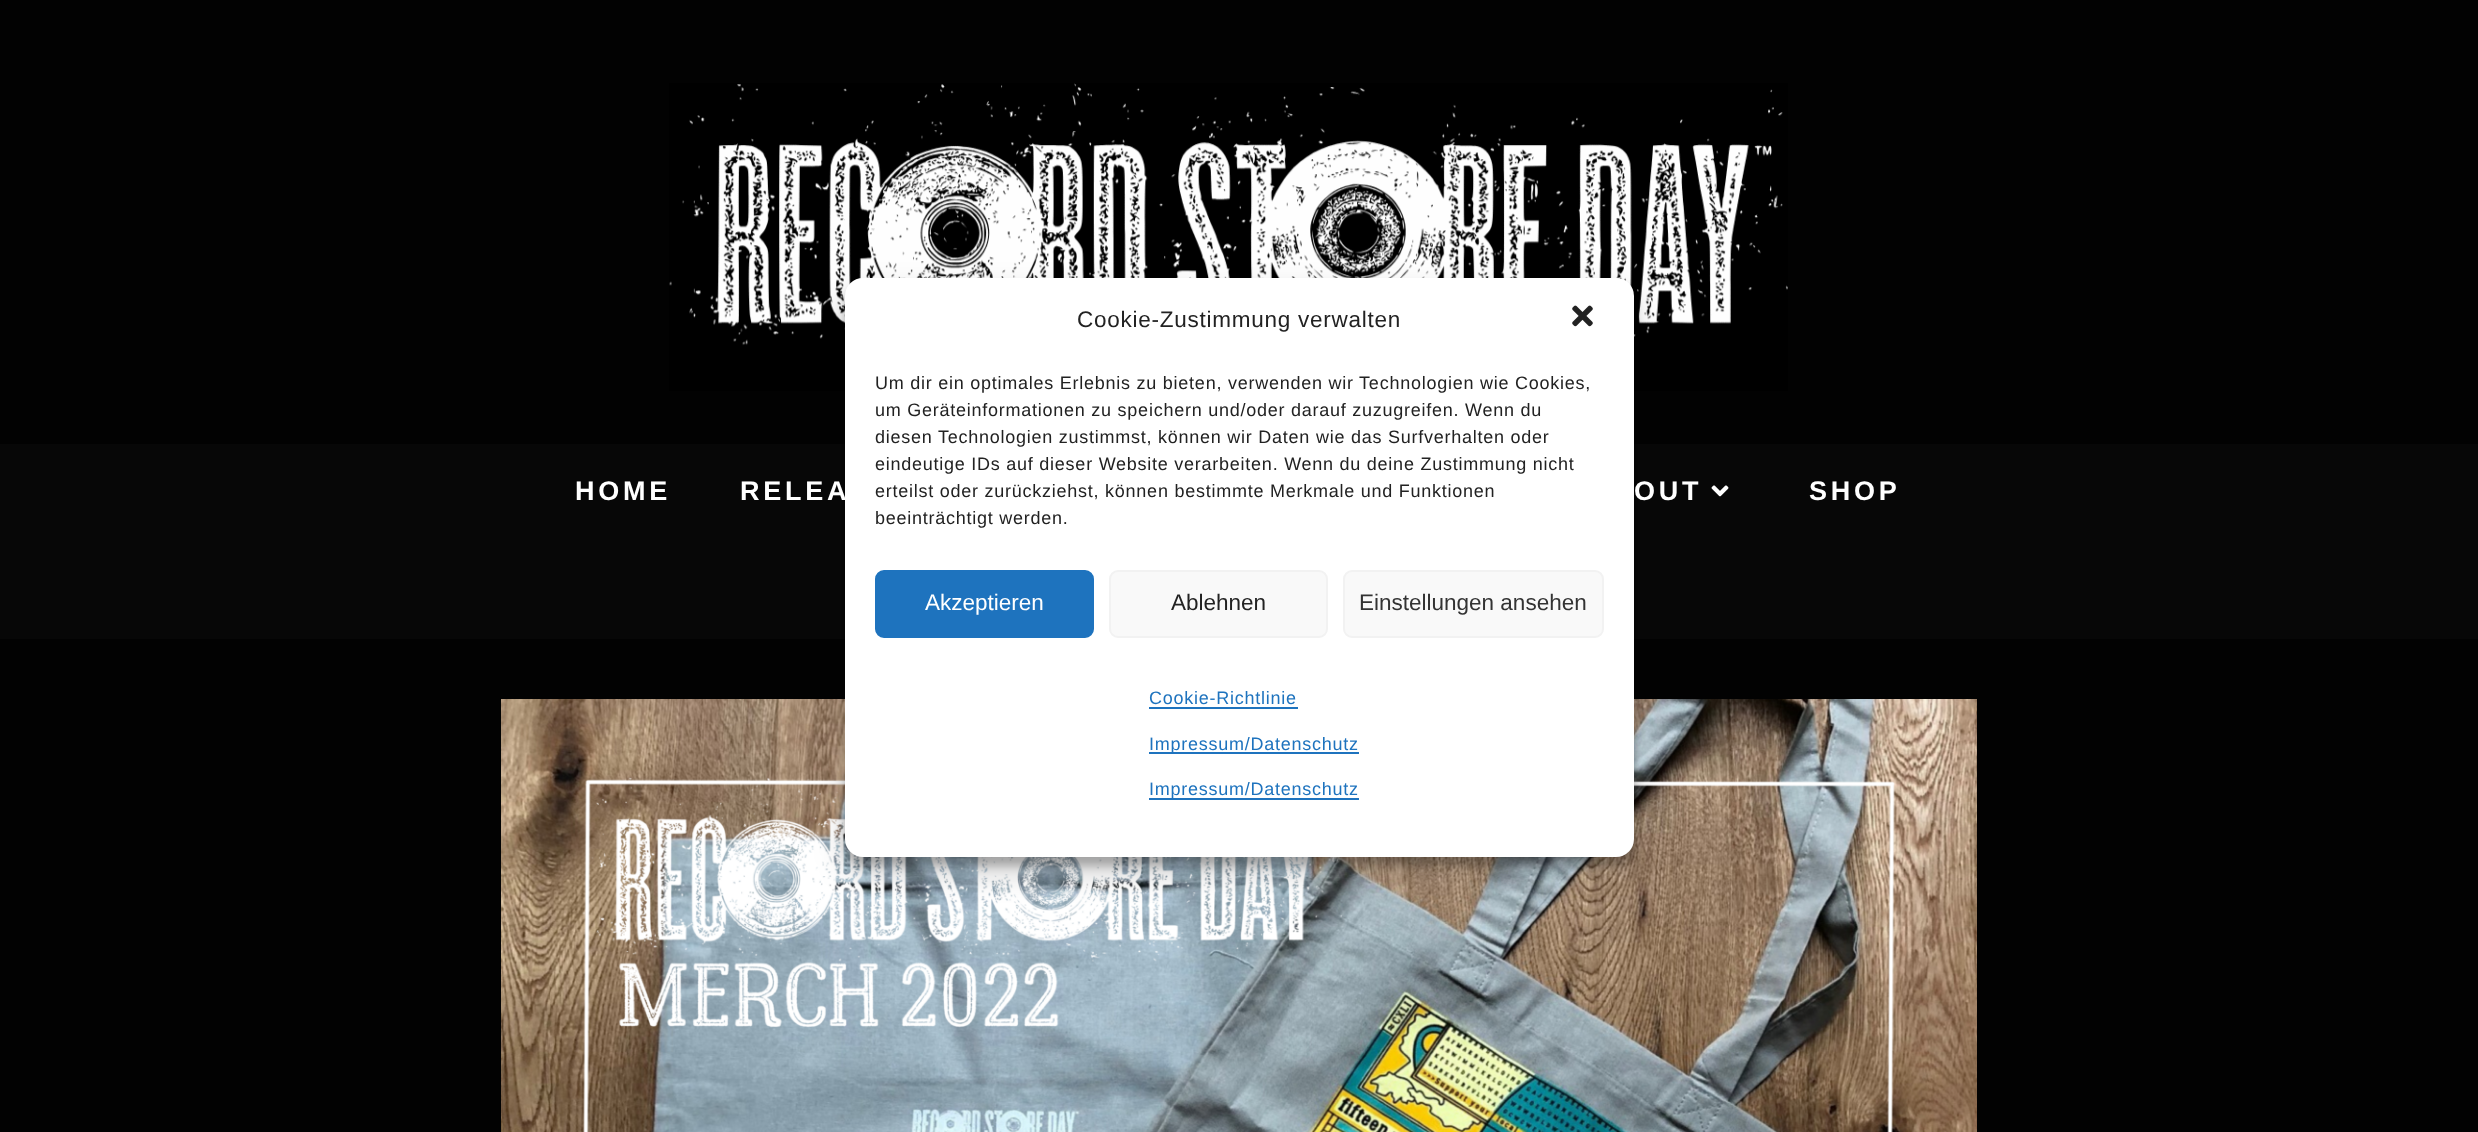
<svg xmlns="http://www.w3.org/2000/svg" width="2478" height="1132" viewBox="0 0 2478 1132">
  <defs>
    <filter id="blur1" x="-50%" y="-200%" width="200%" height="500%"><feGaussianBlur stdDeviation="4.5"/></filter>
    <filter id="blur2" x="-50%" y="-200%" width="200%" height="500%"><feGaussianBlur stdDeviation="15"/></filter>
  </defs>
  <rect width="100%" height="100%" fill="#020202"/>
  <image x="669" y="83" width="1119" height="308" href="img2.png"/>
  <rect x="0" y="444" width="2478" height="195" fill="#070707"/>
  <image x="501" y="699" width="1476" height="433" href="img4.png"/>
  <rect x="845" y="287" width="789" height="579" rx="18" fill="#000000" fill-opacity="0.23" filter="url(#blur1)"/>
  <rect x="845" y="293" width="789" height="579" rx="18" fill="#000000" fill-opacity="0.19" filter="url(#blur2)"/>
  <rect x="845" y="278" width="789" height="579" rx="18" fill="#ffffff"/>
  <text x="1077" y="327" font-family="Liberation Sans" font-size="22.5" letter-spacing="0.75" fill="#222222">Cookie-Zustimmung verwalten</text>
  <image x="1572" y="305" width="21" height="22" href="img1.png"/>
  <text x="875" y="389" font-family="Liberation Sans" font-size="18" letter-spacing="0.75" fill="#222222">Um dir ein optimales Erlebnis zu bieten, verwenden wir Technologien wie Cookies,</text>
  <text x="875" y="416" font-family="Liberation Sans" font-size="18" letter-spacing="0.75" fill="#222222">um Geräteinformationen zu speichern und/oder darauf zuzugreifen. Wenn du</text>
  <text x="875" y="443" font-family="Liberation Sans" font-size="18" letter-spacing="0.75" fill="#222222">diesen Technologien zustimmst, können wir Daten wie das Surfverhalten oder</text>
  <text x="875" y="470" font-family="Liberation Sans" font-size="18" letter-spacing="0.75" fill="#222222">eindeutige IDs auf dieser Website verarbeiten. Wenn du deine Zustimmung nicht</text>
  <text x="875" y="497" font-family="Liberation Sans" font-size="18" letter-spacing="0.75" fill="#222222">erteilst oder zurückziehst, können bestimmte Merkmale und Funktionen</text>
  <text x="875" y="524" font-family="Liberation Sans" font-size="18" letter-spacing="0.75" fill="#222222">beeinträchtigt werden.</text>
  <rect x="876" y="571" width="217" height="66" rx="8" fill="#1e73be" stroke="#1e73be" stroke-width="2"/>
  <text x="925" y="610" font-family="Liberation Sans" font-size="22.5" fill="#ffffff">Akzeptieren</text>
  <rect x="1110" y="571" width="217" height="66" rx="8" fill="#f9f9f9" stroke="#f2f2f2" stroke-width="2"/>
  <text x="1171" y="610" font-family="Liberation Sans" font-size="22.5" fill="#222222">Ablehnen</text>
  <rect x="1344" y="571" width="259" height="66" rx="8" fill="#f9f9f9" stroke="#f2f2f2" stroke-width="2"/>
  <text x="1359" y="610" font-family="Liberation Sans" font-size="22.5" fill="#333333">Einstellungen ansehen</text>
  <text x="1149" y="704" font-family="Liberation Sans" font-size="18" letter-spacing="0.75" fill="#1e73be">Cookie-Richtlinie</text>
  <rect x="1149" y="707" width="149" height="2" fill="#1e73be"/>
  <rect x="1149" y="752" width="210" height="2" fill="#1e73be"/>
  <text x="1149" y="750" font-family="Liberation Sans" font-size="18" letter-spacing="0.75" fill="#1e73be">Impressum/Datenschutz</text>
  <rect x="1149" y="798" width="210" height="2" fill="#1e73be"/>
  <text x="1149" y="795" font-family="Liberation Sans" font-size="18" letter-spacing="0.75" fill="#1e73be">Impressum/Datenschutz</text>
  <text x="575" y="500" font-family="Liberation Sans" font-size="27" font-weight="bold" letter-spacing="3.75" fill="#ffffff">HOME</text>
  <text x="740" y="500" font-family="Liberation Sans" font-size="27" font-weight="bold" letter-spacing="3.75" fill="#ffffff">RELEA</text>
  <text x="1634" y="500" font-family="Liberation Sans" font-size="27" font-weight="bold" letter-spacing="3.75" fill="#ffffff">OUT</text>
  <image x="1711" y="485" width="18" height="12" href="img3.png"/>
  <text x="1809" y="500" font-family="Liberation Sans" font-size="27" font-weight="bold" letter-spacing="3.75" fill="#ffffff">SHOP</text>
</svg>
